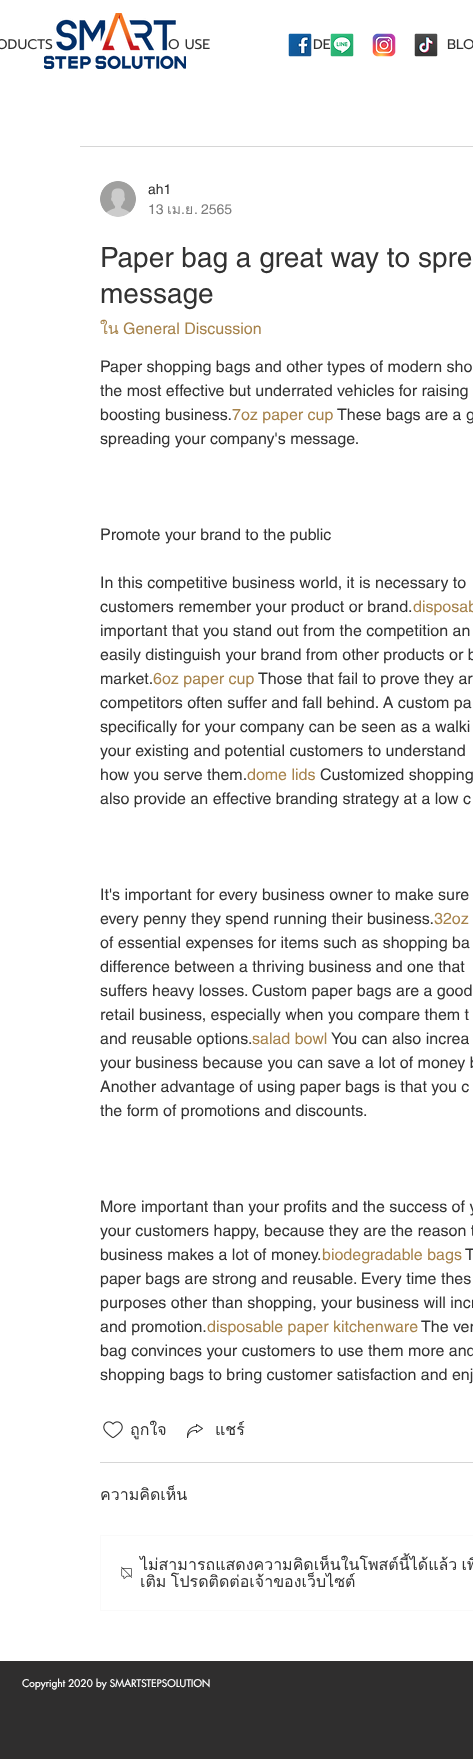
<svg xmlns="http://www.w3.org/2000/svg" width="473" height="1759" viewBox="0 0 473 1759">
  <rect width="100%" height="100%" fill="#ffffff"/>
  <text x="-4" y="49" font-family="Prompt" font-size="14" fill="#323232">ODUCTS</text>
  <text x="168" y="49" font-family="Prompt" font-size="14" fill="#323232">O USE</text>
  <image x="44" y="13" width="142" height="56" href="img1.png"/>
  <image x="288" y="33" width="24" height="24" href="img2.png"/>
  <text x="313" y="49" font-family="Prompt" font-size="14" fill="#323232">DE</text>
  <image x="330" y="33" width="24" height="24" href="img3.png"/>
  <image x="372" y="33" width="24" height="24" href="img4.png"/>
  <image x="414" y="33" width="24" height="24" href="img5.png"/>
  <text x="447" y="49" font-family="Prompt" font-size="14" fill="#323232">BLO</text>
  <rect x="80" y="146" width="393" height="1" fill="#d6d6d6"/>
  <image x="100" y="181" width="36" height="36" href="img6.png"/>
  <text x="148" y="194" font-family="helvetica" font-size="14" fill="#323232">ah1</text>
  <text x="148" y="214" font-family="helvetica" font-size="14" fill="#7c7c7c">13</text>
  <text x="167" y="214" font-family="Loma" font-size="14" fill="#7c7c7c">เม</text>
  <text x="181" y="214" font-family="helvetica" font-size="14" fill="#7c7c7c">.</text>
  <text x="185" y="214" font-family="Loma" font-size="14" fill="#7c7c7c">ย</text>
  <text x="194" y="214" font-family="helvetica" font-size="14" fill="#7c7c7c">. 2565</text>
  <text x="100" y="267" font-family="helvetica" font-size="28" fill="#323232">Paper bag a great way to spre</text>
  <text x="100" y="303" font-family="helvetica" font-size="28" fill="#323232">message</text>
  <text x="100" y="334" font-family="Loma" font-size="16" fill="#a6824a">ใน</text>
  <text x="123" y="334" font-family="helvetica" font-size="16" fill="#a6824a">General Discussion</text>
  <text x="100" y="372" font-family="helvetica" font-size="16" fill="#323232">Paper shopping bags and other types of modern sho</text>
  <text x="100" y="396" font-family="helvetica" font-size="16" fill="#323232">the most effective but underrated vehicles for raising</text>
  <text x="100" y="420" font-family="helvetica" font-size="16" fill="#323232">boosting business.</text>
  <text x="232" y="420" font-family="helvetica" font-size="16" fill="#a6824a">7oz paper cup</text>
  <text x="337" y="420" font-family="helvetica" font-size="16" fill="#323232">These bags are a g</text>
  <text x="100" y="444" font-family="helvetica" font-size="16" fill="#323232">spreading your company's message.</text>
  <text x="100" y="540" font-family="helvetica" font-size="16" fill="#323232">Promote your brand to the public</text>
  <text x="100" y="588" font-family="helvetica" font-size="16" fill="#323232">In this competitive business world, it is necessary to</text>
  <text x="100" y="612" font-family="helvetica" font-size="16" fill="#323232">customers remember your product or brand.</text>
  <text x="413" y="612" font-family="helvetica" font-size="16" fill="#a6824a">disposab</text>
  <text x="100" y="636" font-family="helvetica" font-size="16" fill="#323232">important that you stand out from the competition an</text>
  <text x="100" y="660" font-family="helvetica" font-size="16" fill="#323232">easily distinguish your brand from other products or b</text>
  <text x="100" y="684" font-family="helvetica" font-size="16" fill="#323232">market.</text>
  <text x="153" y="684" font-family="helvetica" font-size="16" fill="#a6824a">6oz paper cup</text>
  <text x="258" y="684" font-family="helvetica" font-size="16" fill="#323232">Those that fail to prove they ar</text>
  <text x="100" y="708" font-family="helvetica" font-size="16" fill="#323232">competitors often suffer and fall behind. A custom pa</text>
  <text x="100" y="732" font-family="helvetica" font-size="16" fill="#323232">specifically for your company can be seen as a walki</text>
  <text x="100" y="756" font-family="helvetica" font-size="16" fill="#323232">your existing and potential customers to understand</text>
  <text x="100" y="780" font-family="helvetica" font-size="16" fill="#323232">how you serve them.</text>
  <text x="247" y="780" font-family="helvetica" font-size="16" fill="#a6824a">dome lids</text>
  <text x="320" y="780" font-family="helvetica" font-size="16" fill="#323232">Customized shopping</text>
  <text x="100" y="804" font-family="helvetica" font-size="16" fill="#323232">also provide an effective branding strategy at a low c</text>
  <text x="100" y="900" font-family="helvetica" font-size="16" fill="#323232">It's important for every business owner to make sure</text>
  <text x="100" y="924" font-family="helvetica" font-size="16" fill="#323232">every penny they spend running their business.</text>
  <text x="434" y="924" font-family="helvetica" font-size="16" fill="#a6824a">32oz</text>
  <text x="100" y="948" font-family="helvetica" font-size="16" fill="#323232">of essential expenses for items such as shopping ba</text>
  <text x="100" y="972" font-family="helvetica" font-size="16" fill="#323232">difference between a thriving business and one that</text>
  <text x="100" y="996" font-family="helvetica" font-size="16" fill="#323232">suffers heavy losses. Custom paper bags are a good</text>
  <text x="100" y="1020" font-family="helvetica" font-size="16" fill="#323232">retail business, especially when you compare them t</text>
  <text x="100" y="1044" font-family="helvetica" font-size="16" fill="#323232">and reusable options.</text>
  <text x="252" y="1044" font-family="helvetica" font-size="16" fill="#a6824a">salad bowl</text>
  <text x="331" y="1044" font-family="helvetica" font-size="16" fill="#323232">You can also increa</text>
  <text x="100" y="1068" font-family="helvetica" font-size="16" fill="#323232">your business because you can save a lot of money b</text>
  <text x="100" y="1092" font-family="helvetica" font-size="16" fill="#323232">Another advantage of using paper bags is that you c</text>
  <text x="100" y="1116" font-family="helvetica" font-size="16" fill="#323232">the form of promotions and discounts.</text>
  <text x="100" y="1212" font-family="helvetica" font-size="16" fill="#323232">More important than your profits and the success of y</text>
  <text x="100" y="1236" font-family="helvetica" font-size="16" fill="#323232">your customers happy, because they are the reason t</text>
  <text x="100" y="1260" font-family="helvetica" font-size="16" fill="#323232">business makes a lot of money.</text>
  <text x="322" y="1260" font-family="helvetica" font-size="16" fill="#a6824a">biodegradable bags</text>
  <text x="465" y="1260" font-family="helvetica" font-size="16" fill="#323232">T</text>
  <text x="100" y="1284" font-family="helvetica" font-size="16" fill="#323232">paper bags are strong and reusable. Every time thes</text>
  <text x="100" y="1308" font-family="helvetica" font-size="16" fill="#323232">purposes other than shopping, your business will incr</text>
  <text x="100" y="1332" font-family="helvetica" font-size="16" fill="#323232">and promotion.</text>
  <text x="207" y="1332" font-family="helvetica" font-size="16" fill="#a6824a">disposable paper kitchenware</text>
  <text x="421" y="1332" font-family="helvetica" font-size="16" fill="#323232">The ver</text>
  <text x="100" y="1356" font-family="helvetica" font-size="16" fill="#323232">bag convinces your customers to use them more and</text>
  <text x="100" y="1380" font-family="helvetica" font-size="16" fill="#323232">shopping bags to bring customer satisfaction and enj</text>
  <image x="103" y="1421" width="20" height="18" href="img7.png"/>
  <text x="130" y="1435" font-family="Loma" font-size="16" fill="#323232">ถูกใจ</text>
  <image x="187" y="1424" width="16" height="14" href="img8.png"/>
  <text x="215" y="1435" font-family="Loma" font-size="16" fill="#323232">แชร์</text>
  <rect x="100" y="1462" width="373" height="1" fill="#d6d6d6"/>
  <text x="100" y="1500" font-family="Loma" font-size="16" fill="#323232">ความคิดเห็น</text>
  <rect x="100.5" y="1535.5" width="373" height="75" fill="none" stroke="#fafafa"/>
  <image x="121" y="1566" width="11" height="13" href="img9.png"/>
  <text x="140" y="1570" word-spacing="-1" font-family="Loma" font-size="16" fill="#323232">ไม่สามารถแสดงความคิดเห็นในโพสต์นี้ได้แล้ว เพื่</text>
  <text x="140" y="1587" word-spacing="-1" font-family="Loma" font-size="16" fill="#323232">เติม โปรดติดต่อเจ้าของเว็บไซต์</text>
  <rect x="0" y="1661" width="473" height="98" fill="#2f2e2e"/>
  <text x="22" y="1687" font-family="futura" font-size="10" font-weight="bold" fill="#ffffff">Copyright 2020 by SMARTSTEPSOLUTION</text>
</svg>
